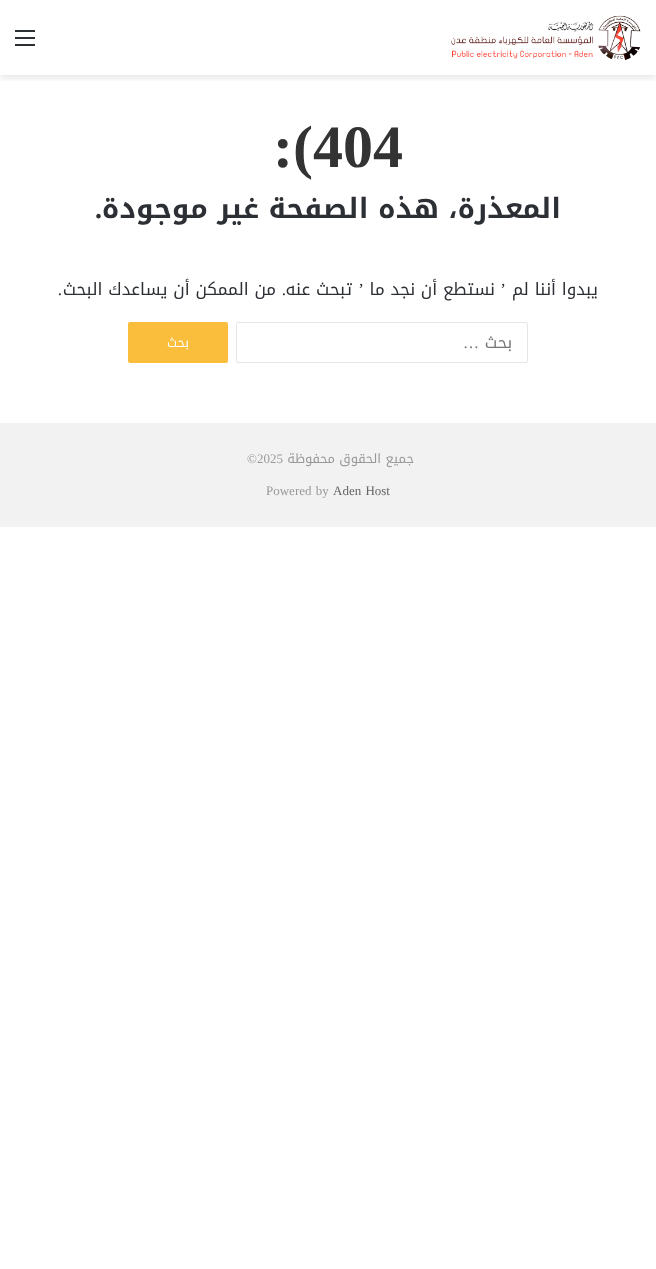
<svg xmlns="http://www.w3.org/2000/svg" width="656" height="1269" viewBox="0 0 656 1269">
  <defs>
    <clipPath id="clip1"><rect x="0" y="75" width="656" height="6"/></clipPath>
    <filter id="blur1" x="-50%" y="-200%" width="200%" height="500%"><feGaussianBlur stdDeviation="3.5"/></filter>
  </defs>
  <rect width="100%" height="100%" fill="#ffffff"/>
  <g clip-path="url(#clip1)">
    <rect x="0" y="3" width="656" height="75" fill="#000000" fill-opacity="0.1" filter="url(#blur1)"/>
  </g>
  <image x="451" y="15" width="190" height="46" href="img1.png"/>
  <rect x="15" y="37" width="20" height="2" fill="#2c2f34"/>
  <rect x="15" y="30" width="20" height="2" fill="#2c2f34"/>
  <rect x="15" y="44" width="20" height="2" fill="#2c2f34"/>
  <text x="273" y="167" font-family="Liberation Serif" font-size="60" font-weight="bold" fill="#333333">:(404</text>
  <text x="561" y="218" font-family="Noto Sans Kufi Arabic" font-size="28" font-weight="bold" direction="rtl" fill="#2c2f34">المعذرة، هذه الصفحة غير موجودة</text>
  <text x="102" y="218" font-family="Liberation Serif" font-size="28" font-weight="bold" direction="rtl" fill="#2c2f34">.</text>
  <text x="598" y="295" font-family="Noto Sans Kufi Arabic" font-size="17" direction="rtl" fill="#2c2f34">يبدوا أننا لم</text>
  <text x="506" y="295" font-family="Liberation Serif" font-size="17" direction="rtl" fill="#2c2f34">’</text>
  <text x="495" y="295" font-family="Noto Sans Kufi Arabic" font-size="17" direction="rtl" fill="#2c2f34">نستطع أن نجد ما</text>
  <text x="364" y="295" font-family="Liberation Serif" font-size="17" direction="rtl" fill="#2c2f34">’</text>
  <text x="352" y="295" font-family="Noto Sans Kufi Arabic" font-size="17" direction="rtl" fill="#2c2f34">تبحث عنه</text>
  <text x="276" y="295" font-family="Noto Sans Kufi Arabic" font-size="17" direction="rtl" fill="#2c2f34">من الممكن أن يساعدك البحث</text>
  <text x="286" y="295" font-family="Liberation Serif" font-size="17" direction="rtl" fill="#2c2f34">.</text>
  <text x="62" y="295" font-family="Liberation Serif" font-size="17" direction="rtl" fill="#2c2f34">.</text>
  <rect x="236.5" y="322.5" width="291" height="40" rx="1.5" fill="none" stroke="#e6e6e6"/>
  <text x="512" y="348" font-family="Noto Sans Kufi Arabic" font-size="16" direction="rtl" fill="#757575">بحث</text>
  <text x="479" y="348" font-family="Liberation Serif" font-size="16" direction="rtl" fill="#757575">…</text>
  <rect x="128" y="322" width="100" height="41" rx="2" fill="#fbbe3c"/>
  <text x="189" y="347" font-family="Noto Sans Kufi Arabic" font-size="13" direction="rtl" fill="#ffffff">بحث</text>
  <rect x="0" y="423" width="656" height="104" fill="#f2f2f2"/>
  <text x="414" y="463" font-family="Noto Sans Kufi Arabic" font-size="13" direction="rtl" fill="#999999">جميع الحقوق محفوظة</text>
  <text x="247" y="463" font-family="Liberation Serif" font-size="13" fill="#999999">©2025</text>
  <text x="333" y="495" word-spacing="1" font-family="Liberation Serif" font-size="13" fill="#666666">Aden Host</text>
  <text x="266" y="495" word-spacing="1" font-family="Liberation Serif" font-size="13" fill="#999999">Powered by</text>
</svg>
